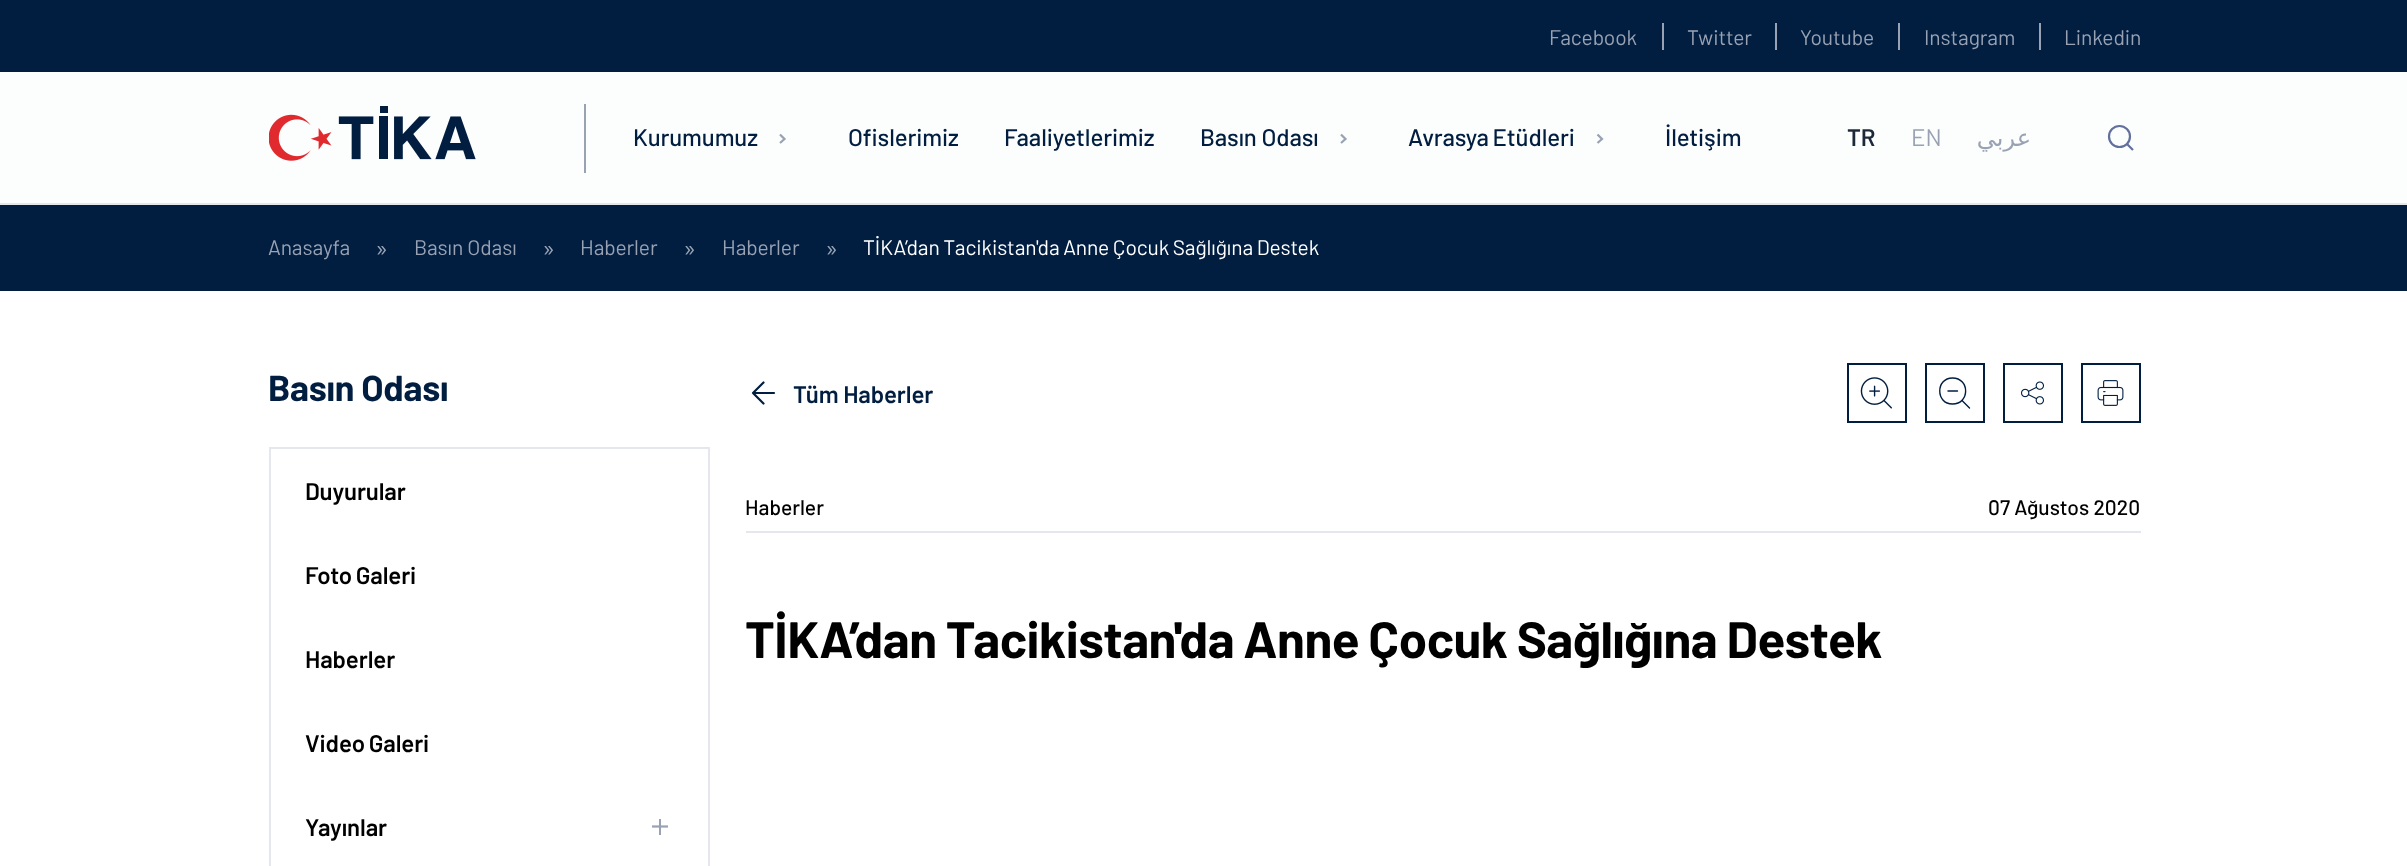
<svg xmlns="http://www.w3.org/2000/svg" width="2407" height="866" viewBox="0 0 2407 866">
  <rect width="100%" height="100%" fill="#ffffff"/>
  <rect x="0" y="0" width="2407" height="72" fill="#011e41"/>
  <rect x="1662" y="23" width="2" height="27" fill="#98a2b3"/>
  <text x="1549" y="45" font-family="Barlow" font-size="21" letter-spacing="-0.1" fill="#98a2b3">Facebook</text>
  <rect x="1775" y="23" width="2" height="27" fill="#98a2b3"/>
  <text x="1687" y="45" font-family="Barlow" font-size="21" letter-spacing="-0.1" fill="#98a2b3">Twitter</text>
  <rect x="1898" y="23" width="2" height="27" fill="#98a2b3"/>
  <text x="1800" y="45" font-family="Barlow" font-size="21" letter-spacing="-0.1" fill="#98a2b3">Youtube</text>
  <rect x="2039" y="23" width="2" height="27" fill="#98a2b3"/>
  <text x="1924" y="45" font-family="Barlow" font-size="21" letter-spacing="-0.1" fill="#98a2b3">Instagram</text>
  <text x="2064" y="45" font-family="Barlow" font-size="21" letter-spacing="-0.1" fill="#98a2b3">Linkedin</text>
  <rect x="0" y="203" width="2407" height="2" fill="#e4e7ec"/>
  <rect x="0" y="72" width="2407" height="131" fill="#fcfdfd"/>
  <image x="269" y="106" width="207" height="55" href="img1.png"/>
  <rect x="584" y="104" width="2" height="69" fill="#98a2b3"/>
  <text x="633" y="146" font-family="Barlow" font-size="24" font-weight="500" letter-spacing="-0.1" fill="#011e41">Kurumumuz</text>
  <path d="M780 143L784.5 139L780 134.5" fill="none" stroke="#98a2b3" stroke-width="2.2"/>
  <text x="848" y="146" font-family="Barlow" font-size="24" font-weight="500" letter-spacing="-0.1" fill="#011e41">Ofislerimiz</text>
  <text x="1004" y="146" font-family="Barlow" font-size="24" font-weight="500" letter-spacing="-0.1" fill="#011e41">Faaliyetlerimiz</text>
  <text x="1200" y="146" font-family="Barlow" font-size="24" font-weight="500" letter-spacing="-0.1" fill="#011e41">Basın Odası</text>
  <path d="M1341 143L1345.5 139L1341 134.5" fill="none" stroke="#98a2b3" stroke-width="2.2"/>
  <text x="1408" y="146" word-spacing="-1" font-family="Barlow" font-size="24" font-weight="500" letter-spacing="-0.1" fill="#011e41">Avrasya Etüdleri</text>
  <path d="M1597.5 143L1602 139L1597.5 134.5" fill="none" stroke="#98a2b3" stroke-width="2.2"/>
  <text x="1665" y="146" font-family="Barlow" font-size="24" font-weight="500" letter-spacing="-0.1" fill="#011e41">İletişim</text>
  <text x="1847" y="146" font-family="Barlow" font-size="24" font-weight="600" letter-spacing="-0.1" fill="#1d2939">TR</text>
  <text x="1911" y="146" font-family="Barlow" font-size="24" letter-spacing="-0.1" fill="#98a2b3">EN</text>
  <text x="2031" y="146" font-family="DejaVu Sans" font-size="24" letter-spacing="-0.1" direction="rtl" fill="#98a2b3">عربي</text>
  <circle cx="2119.5" cy="136.5" r="10.5" fill="none" stroke="#62719c" stroke-width="2.2"/>
  <path d="M2127 144L2133 150" fill="none" stroke="#62719c" stroke-width="2.2"/>
  <rect x="0" y="205" width="2407" height="86" fill="#011e41"/>
  <text x="268" y="255" font-family="Barlow" font-size="21" letter-spacing="-0.1" fill="#98a2b3">Anasayfa</text>
  <text x="375" y="257" font-family="Barlow" font-size="24" fill="#98a2b3">»</text>
  <text x="414" y="255" font-family="Barlow" font-size="21" letter-spacing="-0.1" fill="#98a2b3">Basın Odası</text>
  <text x="542" y="257" font-family="Barlow" font-size="24" fill="#98a2b3">»</text>
  <text x="580" y="255" font-family="Barlow" font-size="21" letter-spacing="-0.1" fill="#98a2b3">Haberler</text>
  <text x="683" y="257" font-family="Barlow" font-size="24" fill="#98a2b3">»</text>
  <text x="722" y="255" font-family="Barlow" font-size="21" letter-spacing="-0.1" fill="#98a2b3">Haberler</text>
  <text x="825" y="257" font-family="Barlow" font-size="24" fill="#98a2b3">»</text>
  <text x="863" y="255" word-spacing="-0.5" font-family="Barlow" font-size="21" letter-spacing="-0.1" fill="#ffffff">TİKA’dan Tacikistan'da Anne Çocuk Sağlığına Destek</text>
  <text x="268" y="401" font-family="Barlow" font-size="36" font-weight="bold" letter-spacing="-0.25" fill="#011e41">Basın Odası</text>
  <rect x="270" y="448" width="439" height="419" fill="none" stroke="#e4e7ec" stroke-width="2"/>
  <text x="305" y="500" font-family="Barlow" font-size="24" font-weight="600" letter-spacing="-0.1" fill="#000000">Duyurular</text>
  <text x="305" y="584" word-spacing="-1" font-family="Barlow" font-size="24" font-weight="600" letter-spacing="-0.1" fill="#000000">Foto Galeri</text>
  <text x="305" y="668" font-family="Barlow" font-size="24" font-weight="600" letter-spacing="-0.1" fill="#000000">Haberler</text>
  <text x="305" y="752" word-spacing="-1" font-family="Barlow" font-size="24" font-weight="600" letter-spacing="-0.1" fill="#000000">Video Galeri</text>
  <text x="305" y="836" font-family="Barlow" font-size="24" font-weight="600" letter-spacing="-0.1" fill="#000000">Yayınlar</text>
  <rect x="659" y="819" width="2" height="16" fill="#98a2b3"/>
  <path d="M668 826.5H652" fill="none" stroke="#98a2b3" stroke-width="2.2"/>
  <path d="M774 393H753M763.5 403.5L753 393L763.5 382.5" fill="none" stroke="#011e41" stroke-width="2.2" stroke-linecap="round" stroke-linejoin="round"/>
  <text x="793" y="403" font-family="Barlow" font-size="24" font-weight="600" letter-spacing="-0.1" fill="#011e41">Tüm Haberler</text>
  <rect x="1848" y="364" width="58" height="58" fill="none" stroke="#011e41" stroke-width="2"/>
  <image x="1860" y="377" width="32" height="32" href="img2.png"/>
  <rect x="1926" y="364" width="58" height="58" fill="none" stroke="#011e41" stroke-width="2"/>
  <path d="M1952.5 404C1970 404 1970 378 1952.5 378C1935.5 378 1935.5 404 1952.5 404ZM1957.5 391H1948M1969.5 408L1962 400.5" fill="none" stroke="#011e41" stroke-width="1.4" stroke-linecap="round" stroke-linejoin="round"/>
  <rect x="2004" y="364" width="58" height="58" fill="none" stroke="#011e41" stroke-width="2"/>
  <image x="2021" y="381" width="23" height="24" href="img3.png"/>
  <rect x="2082" y="364" width="58" height="58" fill="none" stroke="#011e41" stroke-width="2"/>
  <image x="2097" y="380" width="27" height="26" href="img4.png"/>
  <rect x="746" y="531" width="1395" height="2" fill="#e4e7ec"/>
  <text x="745" y="515" font-family="Barlow" font-size="21" font-weight="500" fill="#000000">Haberler</text>
  <text x="1988" y="515" font-family="Barlow" font-size="21" font-weight="500" fill="#000000">07 Ağustos 2020</text>
  <text x="745" y="658" word-spacing="-0.5" font-family="Barlow" font-size="51" font-weight="bold" letter-spacing="-0.5" fill="#000000">TİKA’dan Tacikistan'da Anne Çocuk Sağlığına Destek</text>
</svg>
